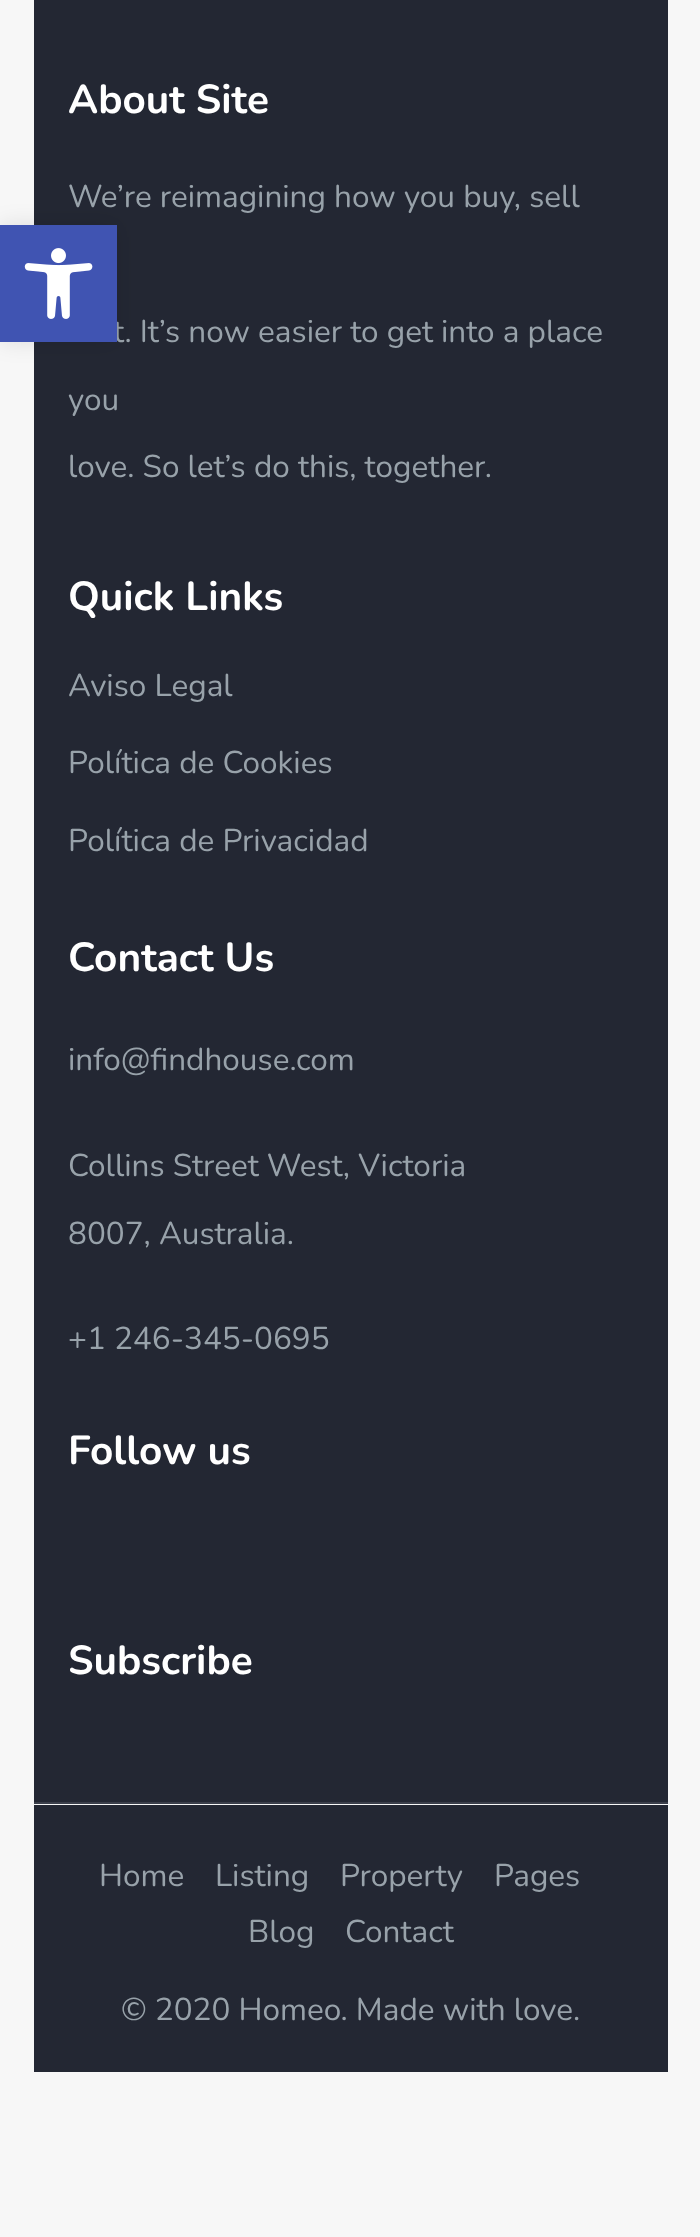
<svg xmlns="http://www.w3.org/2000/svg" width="700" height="2237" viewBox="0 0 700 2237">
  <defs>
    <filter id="blur1" x="-50%" y="-200%" width="200%" height="500%"><feGaussianBlur stdDeviation="11"/></filter>
  </defs>
  <rect width="100%" height="100%" fill="#f7f7f7"/>
  <rect x="34" y="0" width="634" height="1802" fill="#232733"/>
  <text x="68" y="113" font-family="Nunito" font-size="40.5" font-weight="bold" fill="#ffffff">About Site</text>
  <text x="68" y="207" font-family="Nunito" font-size="31.5" fill="#98a2aa">We’re reimagining how you buy, sell</text>
  <text x="113" y="342" font-family="Nunito" font-size="31.5" fill="#98a2aa">t. It’s now easier to get into a place</text>
  <text x="68" y="410" font-family="Nunito" font-size="31.5" fill="#98a2aa">you</text>
  <text x="68" y="477" font-family="Nunito" font-size="31.5" fill="#98a2aa">love. So let’s do this, together.</text>
  <text x="68" y="610" font-family="Nunito" font-size="40.5" font-weight="bold" fill="#ffffff">Quick Links</text>
  <text x="68" y="696" font-family="Nunito" font-size="31.5" fill="#98a2aa">Aviso Legal</text>
  <text x="68" y="773" font-family="Nunito" font-size="31.5" fill="#98a2aa">Política de Cookies</text>
  <text x="68" y="851" font-family="Nunito" font-size="31.5" fill="#98a2aa">Política de Privacidad</text>
  <text x="68" y="971" font-family="Nunito" font-size="40.5" font-weight="bold" fill="#ffffff">Contact Us</text>
  <text x="68" y="1070" font-family="Nunito" font-size="31.5" fill="#98a2aa">info@findhouse.com</text>
  <text x="68" y="1176" font-family="Nunito" font-size="31.5" fill="#98a2aa">Collins Street West, Victoria</text>
  <text x="68" y="1244" font-family="Nunito" font-size="31.5" fill="#98a2aa">8007, Australia.</text>
  <text x="68" y="1349" font-family="Nunito" font-size="31.5" fill="#98a2aa">+1 246-345-0695</text>
  <text x="68" y="1464" font-family="Nunito" font-size="40.5" font-weight="bold" fill="#ffffff">Follow us</text>
  <text x="68" y="1674" font-family="Nunito" font-size="40.5" font-weight="bold" fill="#ffffff">Subscribe</text>
  <rect x="34" y="1805" width="634" height="267" fill="#232733"/>
  <rect x="34" y="1802" width="634" height="2" fill="#3a3e4a"/>
  <text x="99" y="1886" font-family="Nunito" font-size="31.5" fill="#98a2aa">Home</text>
  <text x="215" y="1886" font-family="Nunito" font-size="31.5" fill="#98a2aa">Listing</text>
  <text x="340" y="1886" font-family="Nunito" font-size="31.5" fill="#98a2aa">Property</text>
  <text x="494" y="1886" font-family="Nunito" font-size="31.5" fill="#98a2aa">Pages</text>
  <text x="248" y="1942" font-family="Nunito" font-size="31.5" fill="#98a2aa">Blog</text>
  <text x="345" y="1942" font-family="Nunito" font-size="31.5" fill="#98a2aa">Contact</text>
  <text x="121" y="2020" font-family="Nunito" font-size="31.5" fill="#98a2aa">© 2020 Homeo. Made with love.</text>
  <rect x="0" y="225" width="117" height="117" fill="#000000" fill-opacity="0.1" filter="url(#blur1)"/>
  <rect x="0" y="225" width="117" height="117" fill="#4054b2"/>
  <image x="24" y="248" width="69" height="71" href="img1.png"/>
</svg>
